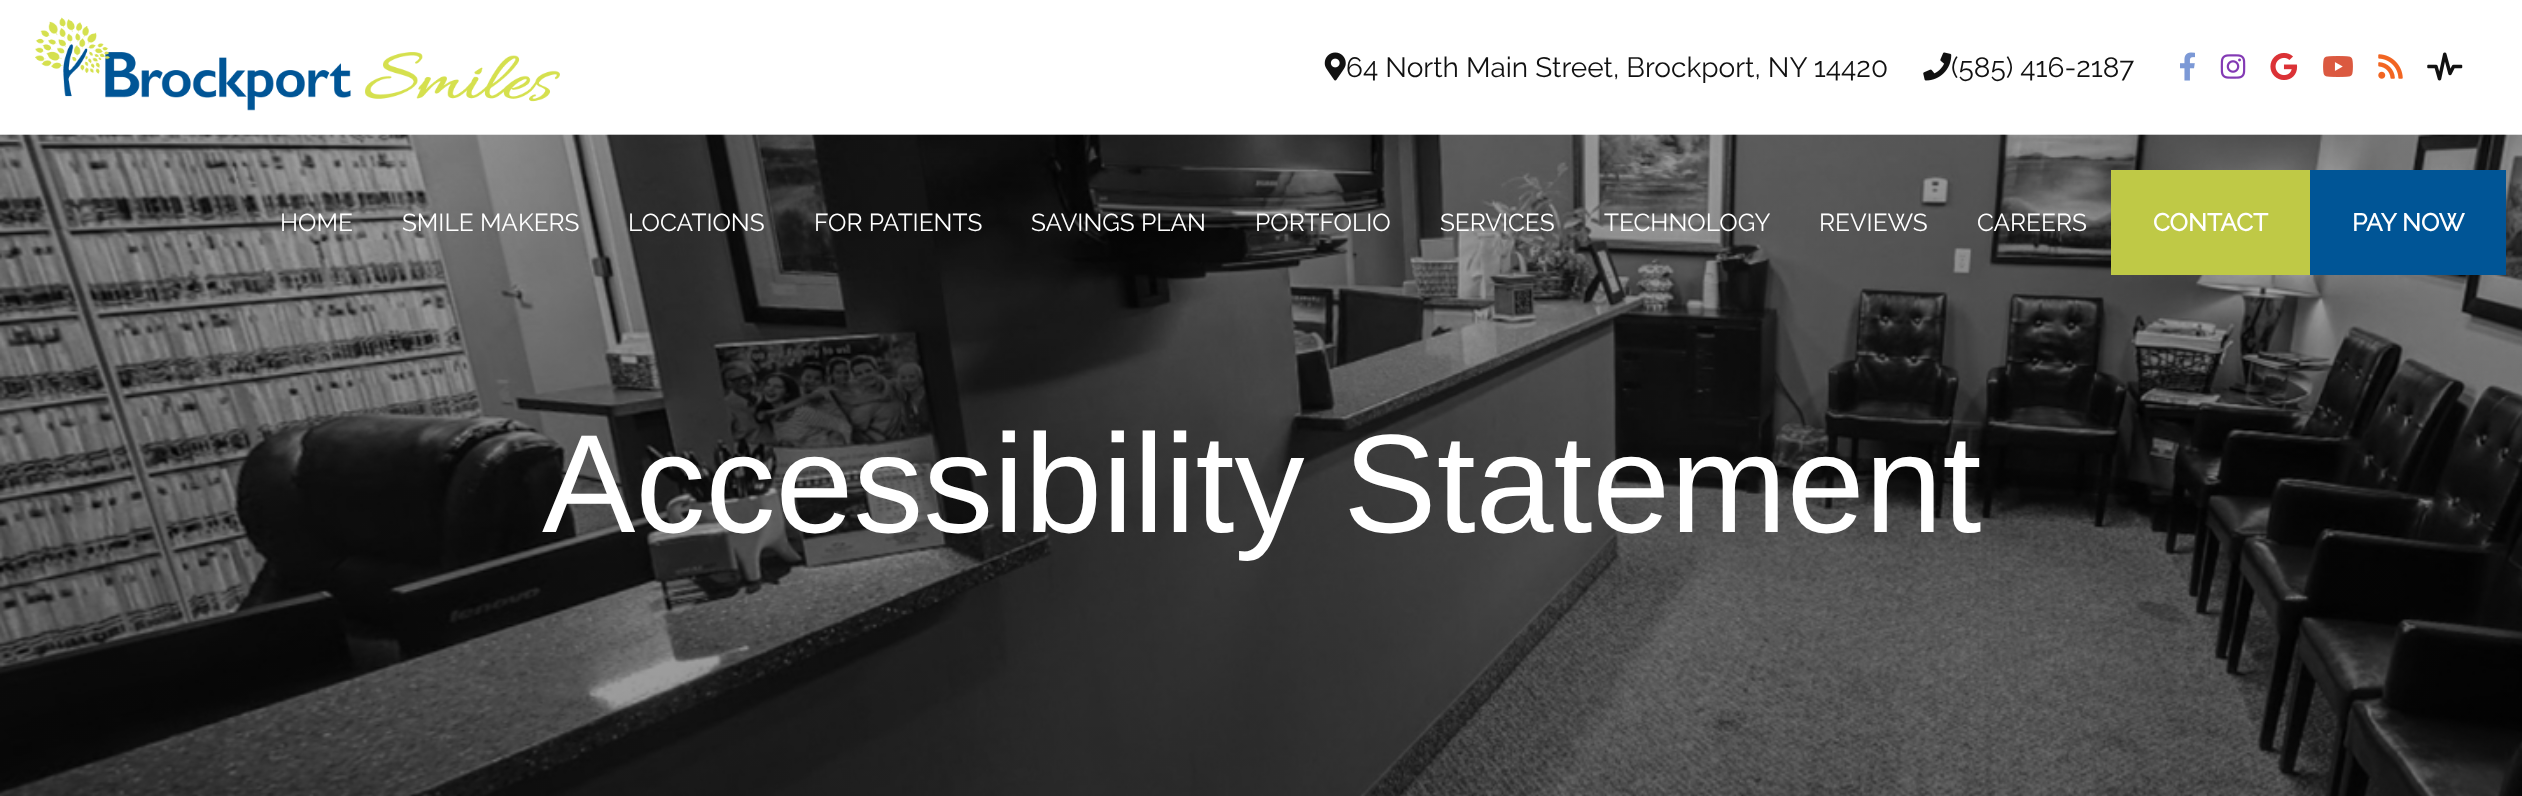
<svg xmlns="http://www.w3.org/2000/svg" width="2522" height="796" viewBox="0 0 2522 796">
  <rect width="100%" height="100%" fill="#ffffff"/>
  <image x="35" y="17" width="525" height="94" href="img1.png"/>
  <image x="1324" y="52" width="22" height="29" href="img2.png"/>
  <text x="1346" y="77" font-family="Raleway" font-size="28" font-weight="100" fill="#111111">64 North Main Street, Brockport, NY 14420</text>
  <image x="1923" y="52" width="29" height="29" href="img3.png"/>
  <text x="1951" y="77" font-family="Raleway" font-size="28" font-weight="100" fill="#111111">(585) 416-2187</text>
  <image x="2180" y="52" width="15" height="29" href="img4.png"/>
  <image x="2220" y="54" width="26" height="25" href="img5.png"/>
  <image x="2270" y="52" width="28" height="28" href="img6.png"/>
  <image x="2323" y="56" width="30" height="21" href="img7.png"/>
  <image x="2378" y="54" width="25" height="25" href="img8.png"/>
  <image x="2427" y="52" width="36" height="29" href="img9.png"/>
  <image x="0" y="134" width="2522" height="662" href="img10.png"/>
  <text x="280" y="231" font-family="Raleway" font-size="24.5" font-weight="100" fill="#ffffff">HOME</text>
  <text x="402" y="231" font-family="Raleway" font-size="24.5" font-weight="100" fill="#ffffff">SMILE MAKERS</text>
  <text x="628" y="231" font-family="Raleway" font-size="24.5" font-weight="100" fill="#ffffff">LOCATIONS</text>
  <text x="814" y="231" font-family="Raleway" font-size="24.5" font-weight="100" fill="#ffffff">FOR PATIENTS</text>
  <text x="1031" y="231" font-family="Raleway" font-size="24.5" font-weight="100" fill="#ffffff">SAVINGS PLAN</text>
  <text x="1255" y="231" font-family="Raleway" font-size="24.5" font-weight="100" fill="#ffffff">PORTFOLIO</text>
  <text x="1440" y="231" font-family="Raleway" font-size="24.5" font-weight="100" fill="#ffffff">SERVICES</text>
  <text x="1604" y="231" font-family="Raleway" font-size="24.5" font-weight="100" fill="#ffffff">TECHNOLOGY</text>
  <text x="1819" y="231" font-family="Raleway" font-size="24.5" font-weight="100" fill="#ffffff">REVIEWS</text>
  <text x="1977" y="231" font-family="Raleway" font-size="24.5" font-weight="100" fill="#ffffff">CAREERS</text>
  <rect x="2111" y="170" width="199" height="105" fill="#bfc946"/>
  <text x="2153" y="231" font-family="Raleway" font-size="24.5" font-weight="bold" fill="#ffffff">CONTACT</text>
  <rect x="2310" y="170" width="196" height="105" fill="#005596"/>
  <text x="2352" y="231" font-family="Raleway" font-size="24.5" font-weight="bold" fill="#ffffff">PAY NOW</text>
  <text x="542" y="532" font-family="Liberation Sans" font-size="140" fill="#ffffff">Accessibility Statement</text>
</svg>
